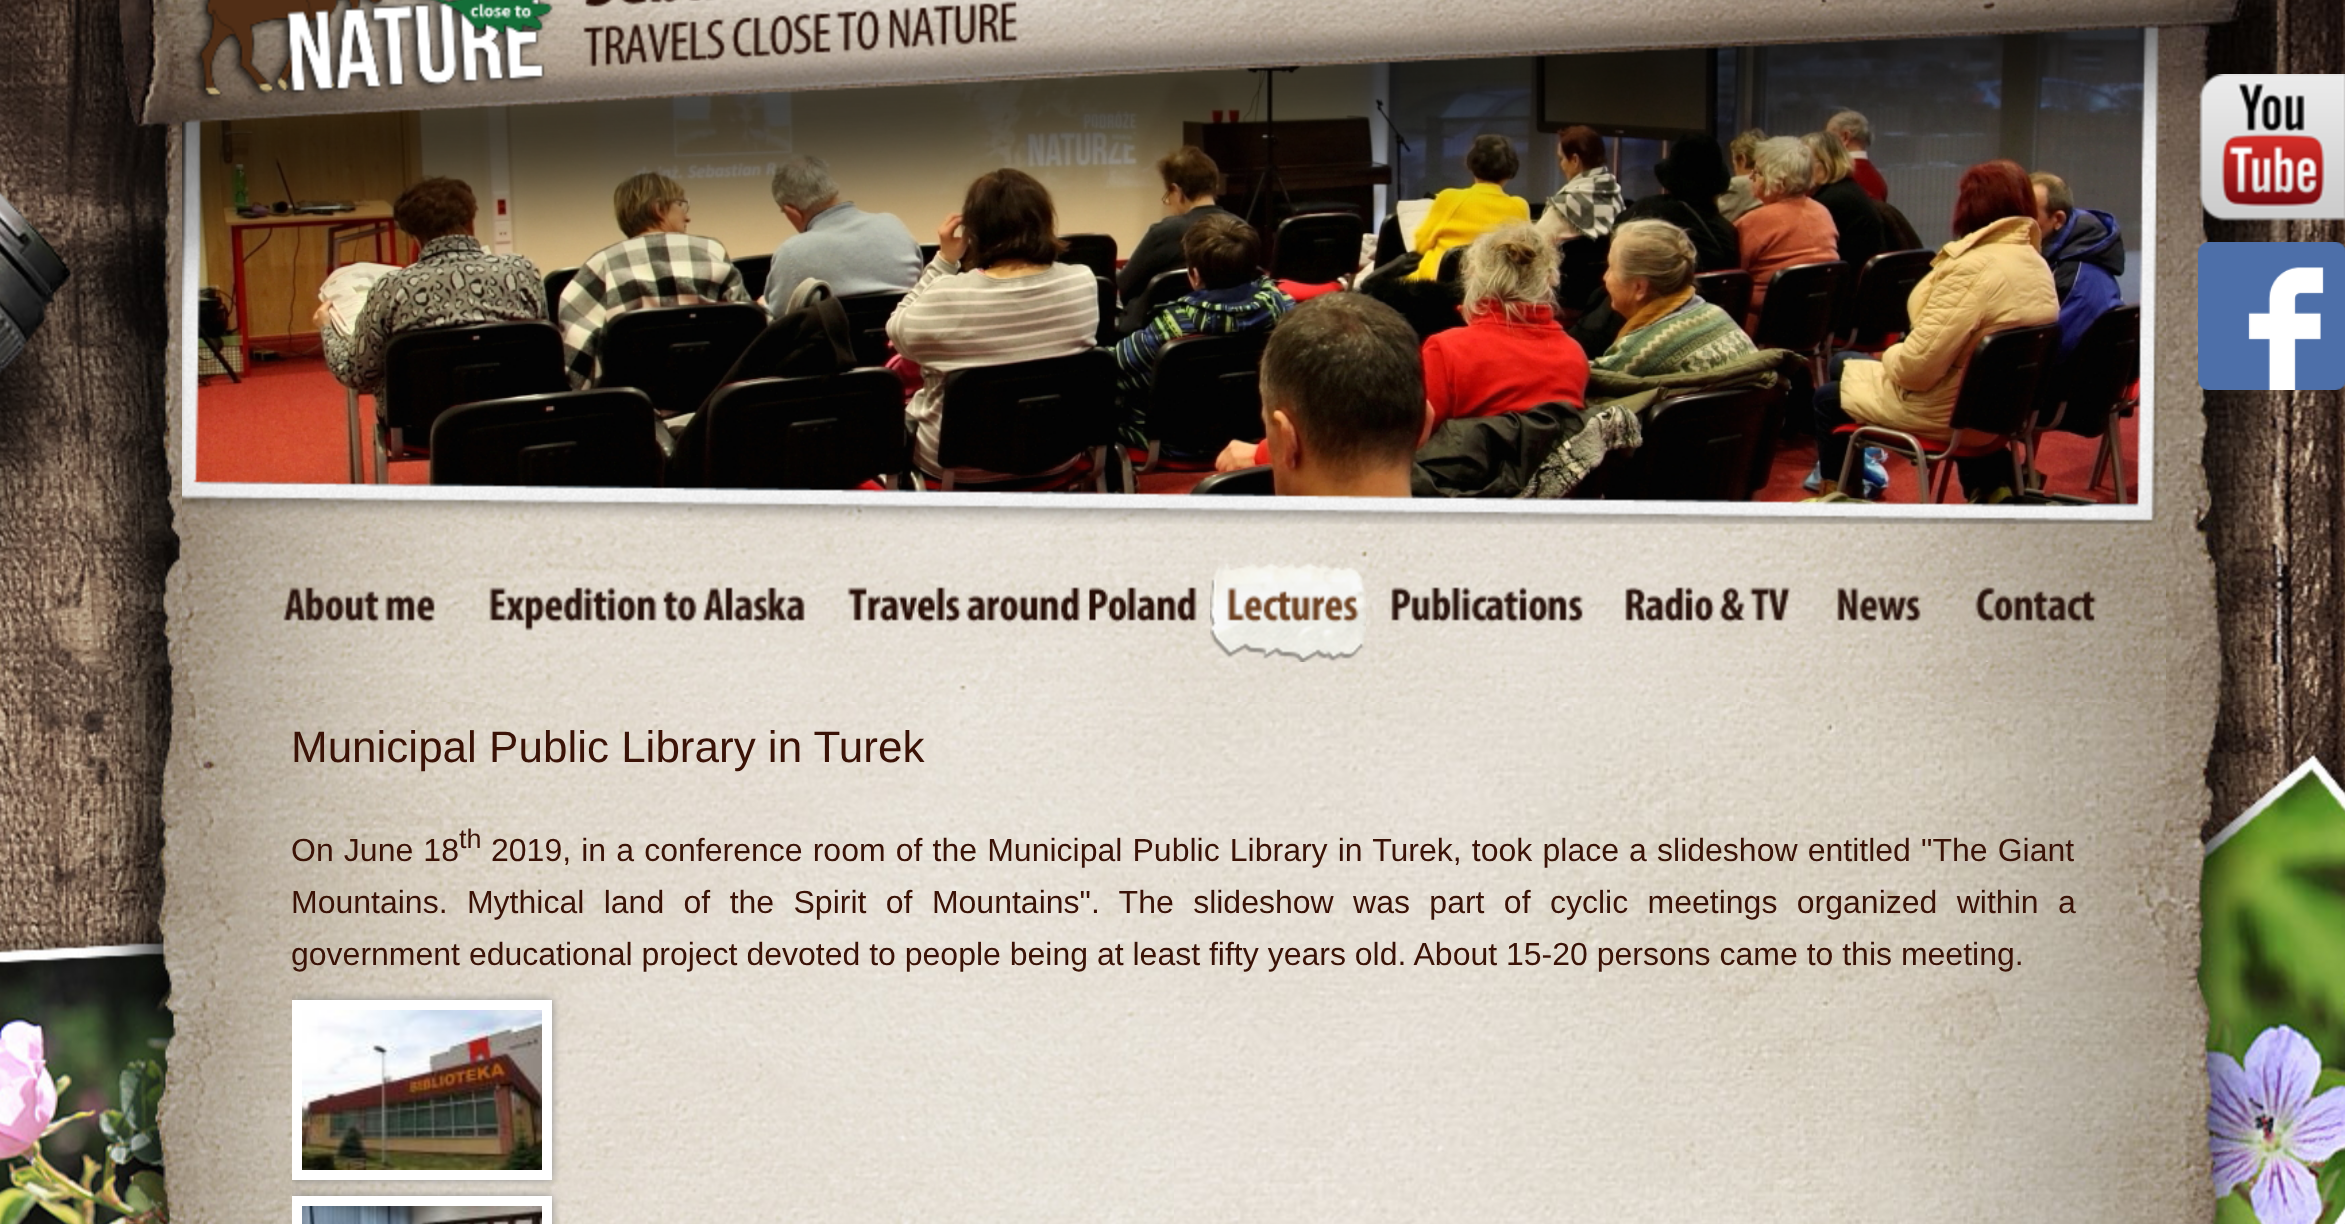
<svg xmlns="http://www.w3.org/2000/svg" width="2345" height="1224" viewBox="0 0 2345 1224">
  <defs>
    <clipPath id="clip1"><rect x="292" y="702" width="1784" height="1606"/></clipPath>
    <filter id="blur1" x="-50%" y="-200%" width="200%" height="500%"><feGaussianBlur stdDeviation="5"/></filter>
  </defs>
  <rect width="100%" height="100%" fill="#ffffff"/>
  <image x="0" y="0" width="1174" height="1224" href="img1.png"/>
  <image x="0" y="191" width="116" height="398" href="img2.png"/>
  <image x="1174" y="0" width="1171" height="1224" href="img3.png"/>
  <image x="2199" y="74" width="146" height="147" href="img4.png"/>
  <image x="2198" y="242" width="147" height="148" href="img5.png"/>
  <image x="2343" y="417" width="2" height="61" href="img6.png"/>
  <image x="193" y="25" width="1952" height="482" href="img7.png"/>
  <image x="182" y="25" width="1984" height="677" href="img10.png"/>
  <image x="182" y="0" width="1984" height="301" href="img8.png"/>
  <image x="190" y="0" width="829" height="103" href="img9.png"/>
  <image x="283" y="587" width="152" height="36" href="img11.png"/>
  <image x="489" y="587" width="316" height="44" href="img12.png"/>
  <image x="847" y="587" width="350" height="36" href="img13.png"/>
  <image x="1210" y="563" width="156" height="99" href="img14.png"/>
  <image x="1391" y="587" width="192" height="36" href="img15.png"/>
  <image x="1625" y="587" width="166" height="75" href="img16.png"/>
  <image x="1837" y="587" width="84" height="75" href="img17.png"/>
  <image x="1975" y="587" width="122" height="75" href="img18.png"/>
  <text x="291" y="762" font-family="Liberation Sans" font-size="44" fill="#3a1206">Municipal Public Library in Turek</text>
  <text x="291" y="861" word-spacing="1.25" font-family="Liberation Sans" font-size="32" fill="#3a1206">On June 18</text>
  <text x="459" y="848" font-family="Liberation Sans" font-size="27" fill="#3a1206">th</text>
  <text x="491" y="861" word-spacing="1.25" font-family="Liberation Sans" font-size="32" fill="#3a1206">2019, in a conference room of the Municipal Public Library in Turek, took place a slideshow entitled "The Giant</text>
  <text x="291" y="913" word-spacing="10.5" font-family="Liberation Sans" font-size="32" fill="#3a1206">Mountains. Mythical land of the Spirit of Mountains". The slideshow was part of cyclic meetings organized within a</text>
  <text x="291" y="965" font-family="Liberation Sans" font-size="32" fill="#3a1206">government educational project devoted to people being at least fifty years old. About 15-20 persons came to this meeting.</text>
  <g clip-path="url(#clip1)">
    <rect x="292" y="1000" width="260" height="180" fill="#888888" filter="url(#blur1)"/>
  </g>
  <rect x="292" y="1000" width="260" height="180" fill="#ffffff"/>
  <image x="302" y="1010" width="240" height="160" href="img19.png"/>
  <g clip-path="url(#clip1)">
    <rect x="292" y="1196" width="260" height="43" fill="#888888" filter="url(#blur1)"/>
  </g>
  <rect x="292" y="1196" width="260" height="28" fill="#ffffff"/>
  <image x="302" y="1206" width="240" height="18" href="img20.png"/>
  <image x="2325" y="1194" width="20" height="30" href="img21.png"/>
</svg>
